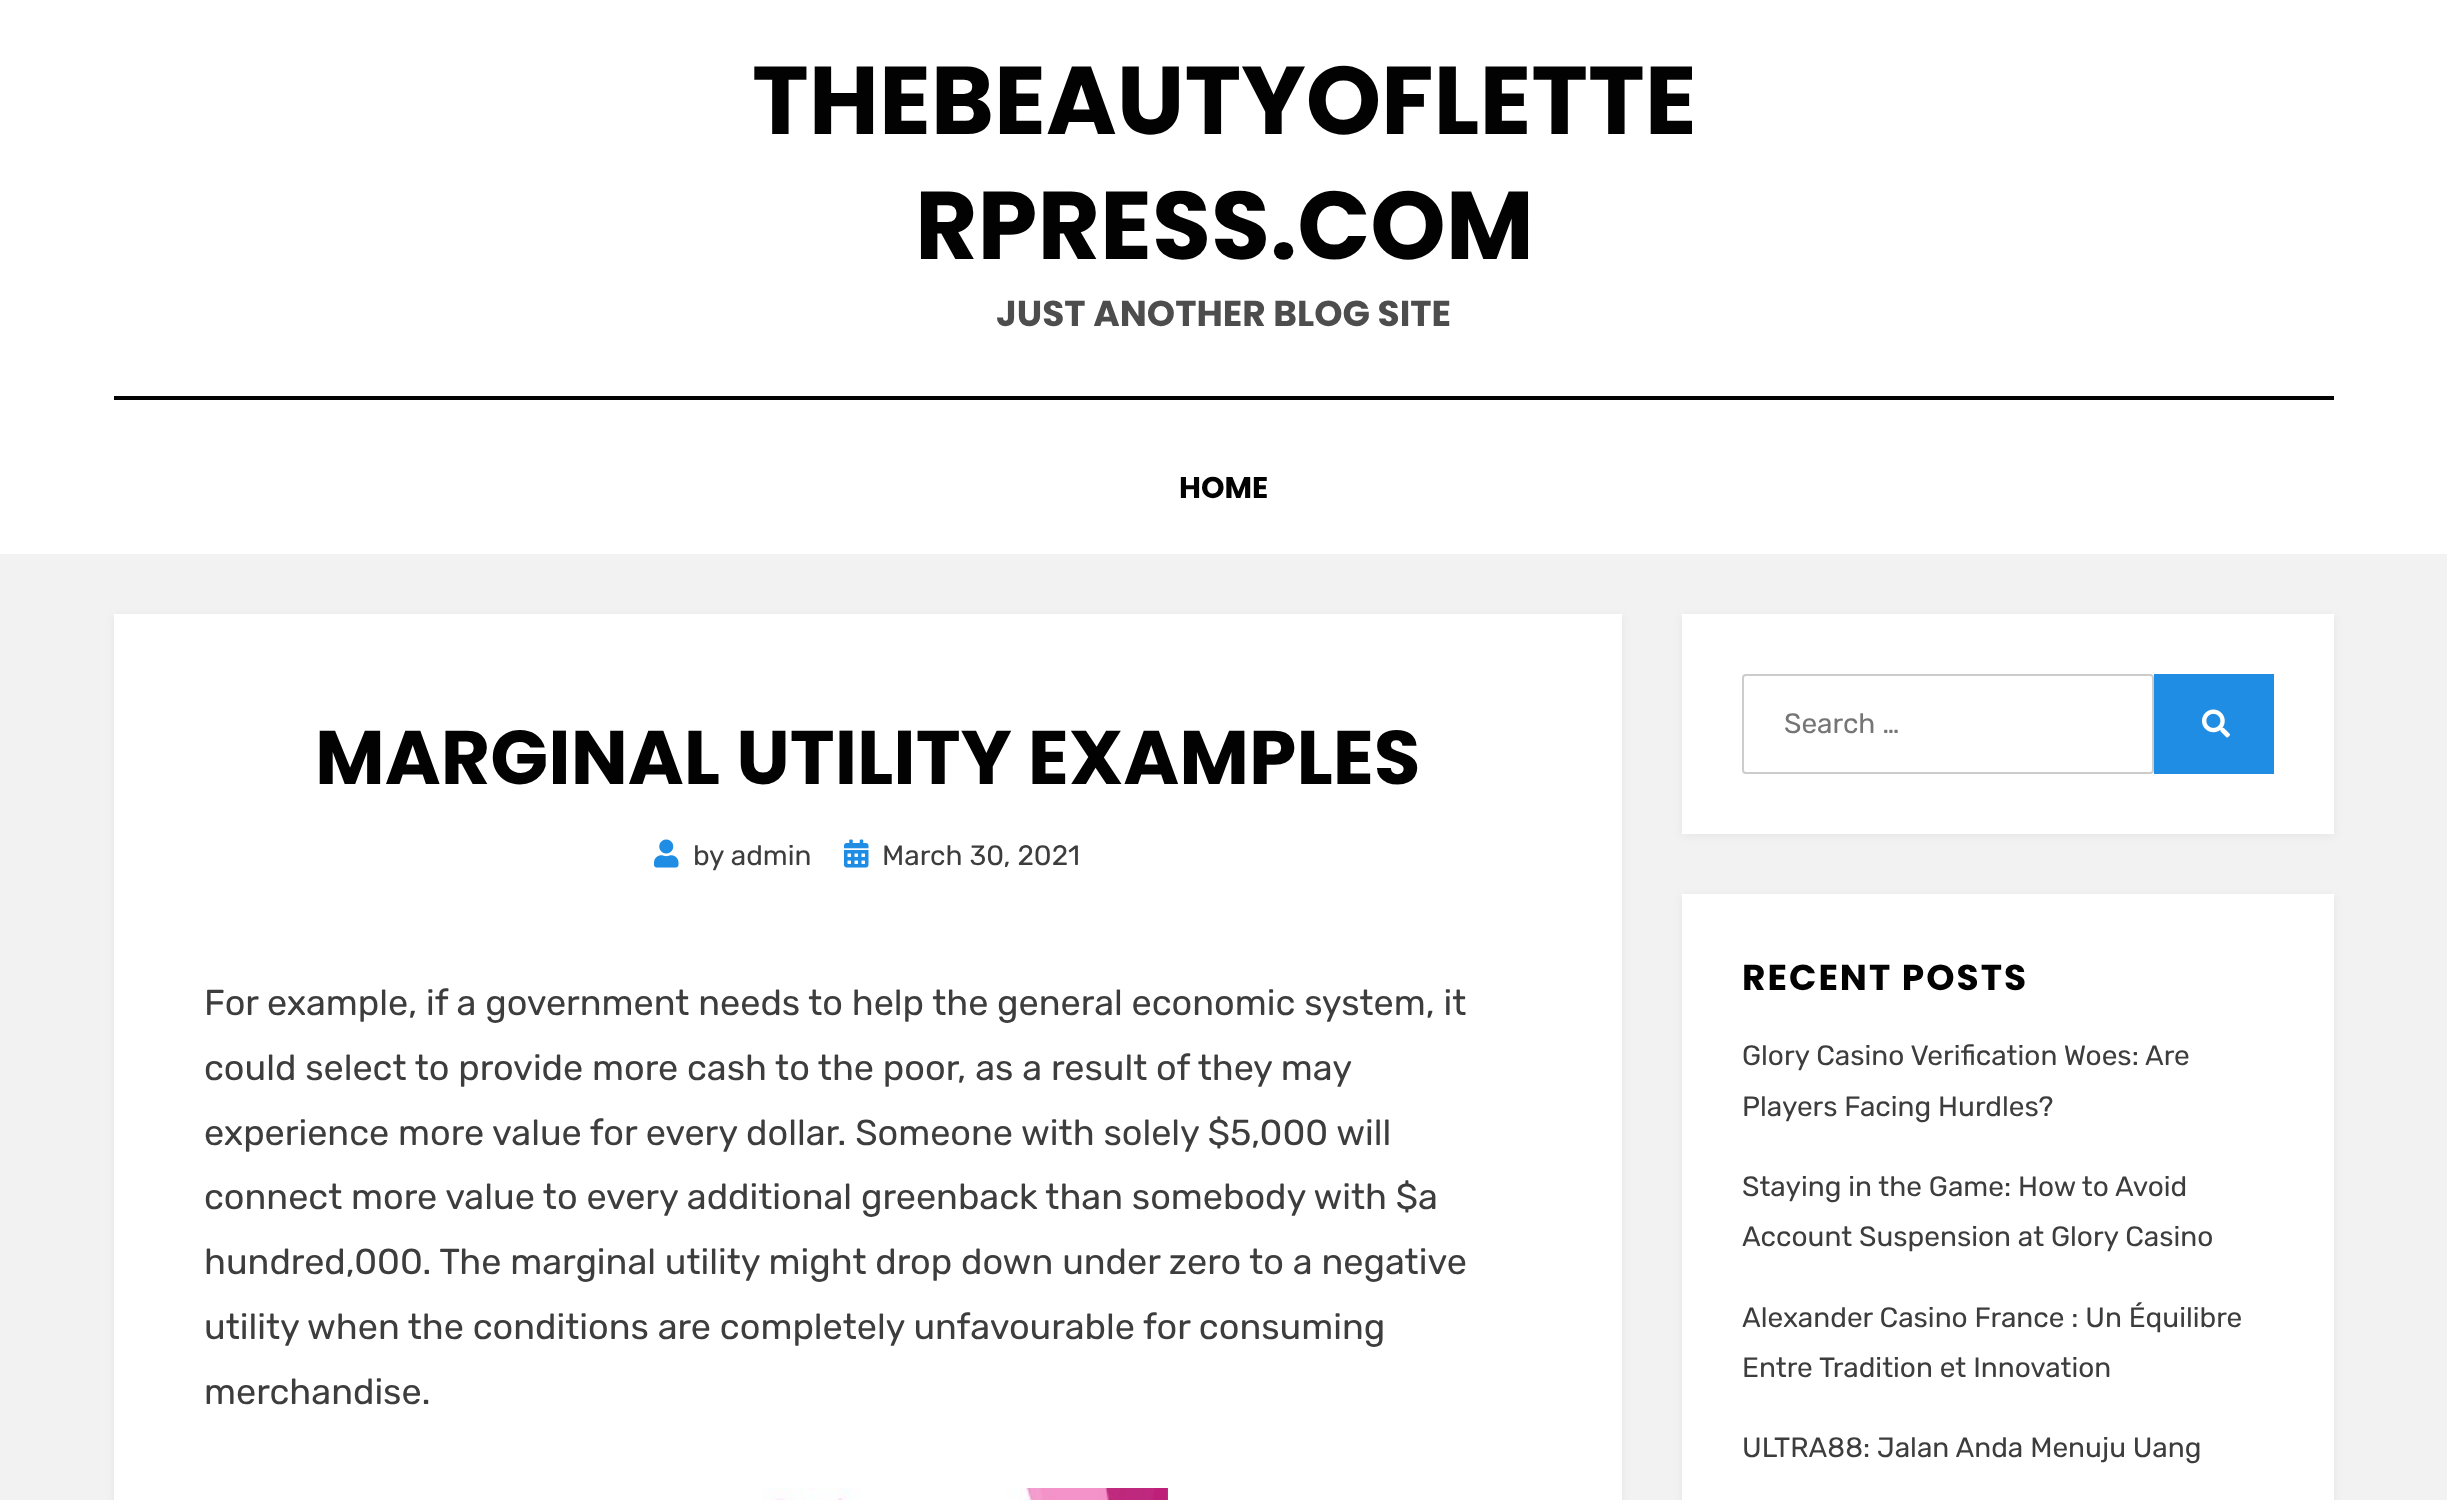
<svg xmlns="http://www.w3.org/2000/svg" width="2447" height="1500" viewBox="0 0 2447 1500">
  <defs>
    <filter id="blur1" x="-50%" y="-200%" width="200%" height="500%"><feGaussianBlur stdDeviation="5"/></filter>
  </defs>
  <rect width="100%" height="100%" fill="#f2f2f2"/>
  <rect x="0" y="0" width="2447" height="554" fill="#ffffff"/>
  <text x="752" y="134" font-family="Poppins" font-size="96" font-weight="bold" fill="#020202">THEBEAUTYOFLETTE</text>
  <text x="915" y="259" font-family="Poppins" font-size="96" font-weight="bold" fill="#020202">RPRESS.COM</text>
  <text x="996" y="326" font-family="Poppins" font-size="36" font-weight="bold" fill="#4d4d4d">JUST ANOTHER BLOG SITE</text>
  <rect x="114" y="396" width="2220" height="4" fill="#020202"/>
  <text x="1179" y="498" font-family="Poppins" font-size="30" font-weight="bold" fill="#020202">HOME</text>
  <rect x="114" y="616" width="1508" height="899" fill="#000001" fill-opacity="0.05" filter="url(#blur1)"/>
  <rect x="114" y="614" width="1508" height="886" fill="#ffffff"/>
  <text x="315" y="784" font-family="Poppins" font-size="76" font-weight="bold" fill="#020202">MARGINAL UTILITY EXAMPLES</text>
  <image x="654" y="839" width="25" height="29" href="img1.png"/>
  <text x="693" y="865" font-family="Rubik" font-size="28" fill="#3d3d3d">by admin</text>
  <image x="844" y="839" width="25" height="29" href="img2.png"/>
  <text x="882" y="865" font-family="Rubik" font-size="28" fill="#3d3d3d">March 30, 2021</text>
  <text x="204" y="1015" font-family="Rubik" font-size="36" fill="#3d3d3d">For example, if a government needs to help the general economic system, it</text>
  <text x="204" y="1080" font-family="Rubik" font-size="36" fill="#3d3d3d">could select to provide more cash to the poor, as a result of they may</text>
  <text x="204" y="1145" font-family="Rubik" font-size="36" fill="#3d3d3d">experience more value for every dollar. Someone with solely $5,000 will</text>
  <text x="204" y="1209" font-family="Rubik" font-size="36" fill="#3d3d3d">connect more value to every additional greenback than somebody with $a</text>
  <text x="204" y="1274" font-family="Rubik" font-size="36" fill="#3d3d3d">hundred,000. The marginal utility might drop down under zero to a negative</text>
  <text x="204" y="1339" font-family="Rubik" font-size="36" fill="#3d3d3d">utility when the conditions are completely unfavourable for consuming</text>
  <text x="204" y="1404" font-family="Rubik" font-size="36" fill="#3d3d3d">merchandise.</text>
  <image x="763" y="1488" width="405" height="12" href="img3.png"/>
  <rect x="1682" y="616" width="652" height="220" fill="#000001" fill-opacity="0.05" filter="url(#blur1)"/>
  <rect x="1682" y="614" width="652" height="220" fill="#ffffff"/>
  <rect x="1743" y="675" width="410" height="98" rx="3" fill="none" stroke="#cccccc" stroke-width="2"/>
  <text x="1784" y="733" font-family="Rubik" font-size="28" fill="#757575">Search …</text>
  <rect x="2154" y="674" width="120" height="100" fill="#208de5"/>
  <image x="2202" y="709" width="28" height="29" href="img4.png"/>
  <rect x="1682" y="896" width="652" height="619" fill="#000001" fill-opacity="0.05" filter="url(#blur1)"/>
  <rect x="1682" y="894" width="652" height="606" fill="#ffffff"/>
  <text x="1742" y="990" font-family="Poppins" font-size="36" font-weight="bold" letter-spacing="2" fill="#020202">RECENT POSTS</text>
  <text x="1742" y="1065" font-family="Rubik" font-size="28" fill="#3d3d3d">Glory Casino Verification Woes: Are</text>
  <text x="1742" y="1116" font-family="Rubik" font-size="28" fill="#3d3d3d">Players Facing Hurdles?</text>
  <text x="1742" y="1196" font-family="Rubik" font-size="28" fill="#3d3d3d">Staying in the Game: How to Avoid</text>
  <text x="1742" y="1246" font-family="Rubik" font-size="28" fill="#3d3d3d">Account Suspension at Glory Casino</text>
  <text x="1742" y="1327" font-family="Rubik" font-size="28" fill="#3d3d3d">Alexander Casino France : Un Équilibre</text>
  <text x="1742" y="1377" font-family="Rubik" font-size="28" fill="#3d3d3d">Entre Tradition et Innovation</text>
  <text x="1742" y="1457" font-family="Rubik" font-size="28" fill="#3d3d3d">ULTRA88: Jalan Anda Menuju Uang</text>
</svg>
